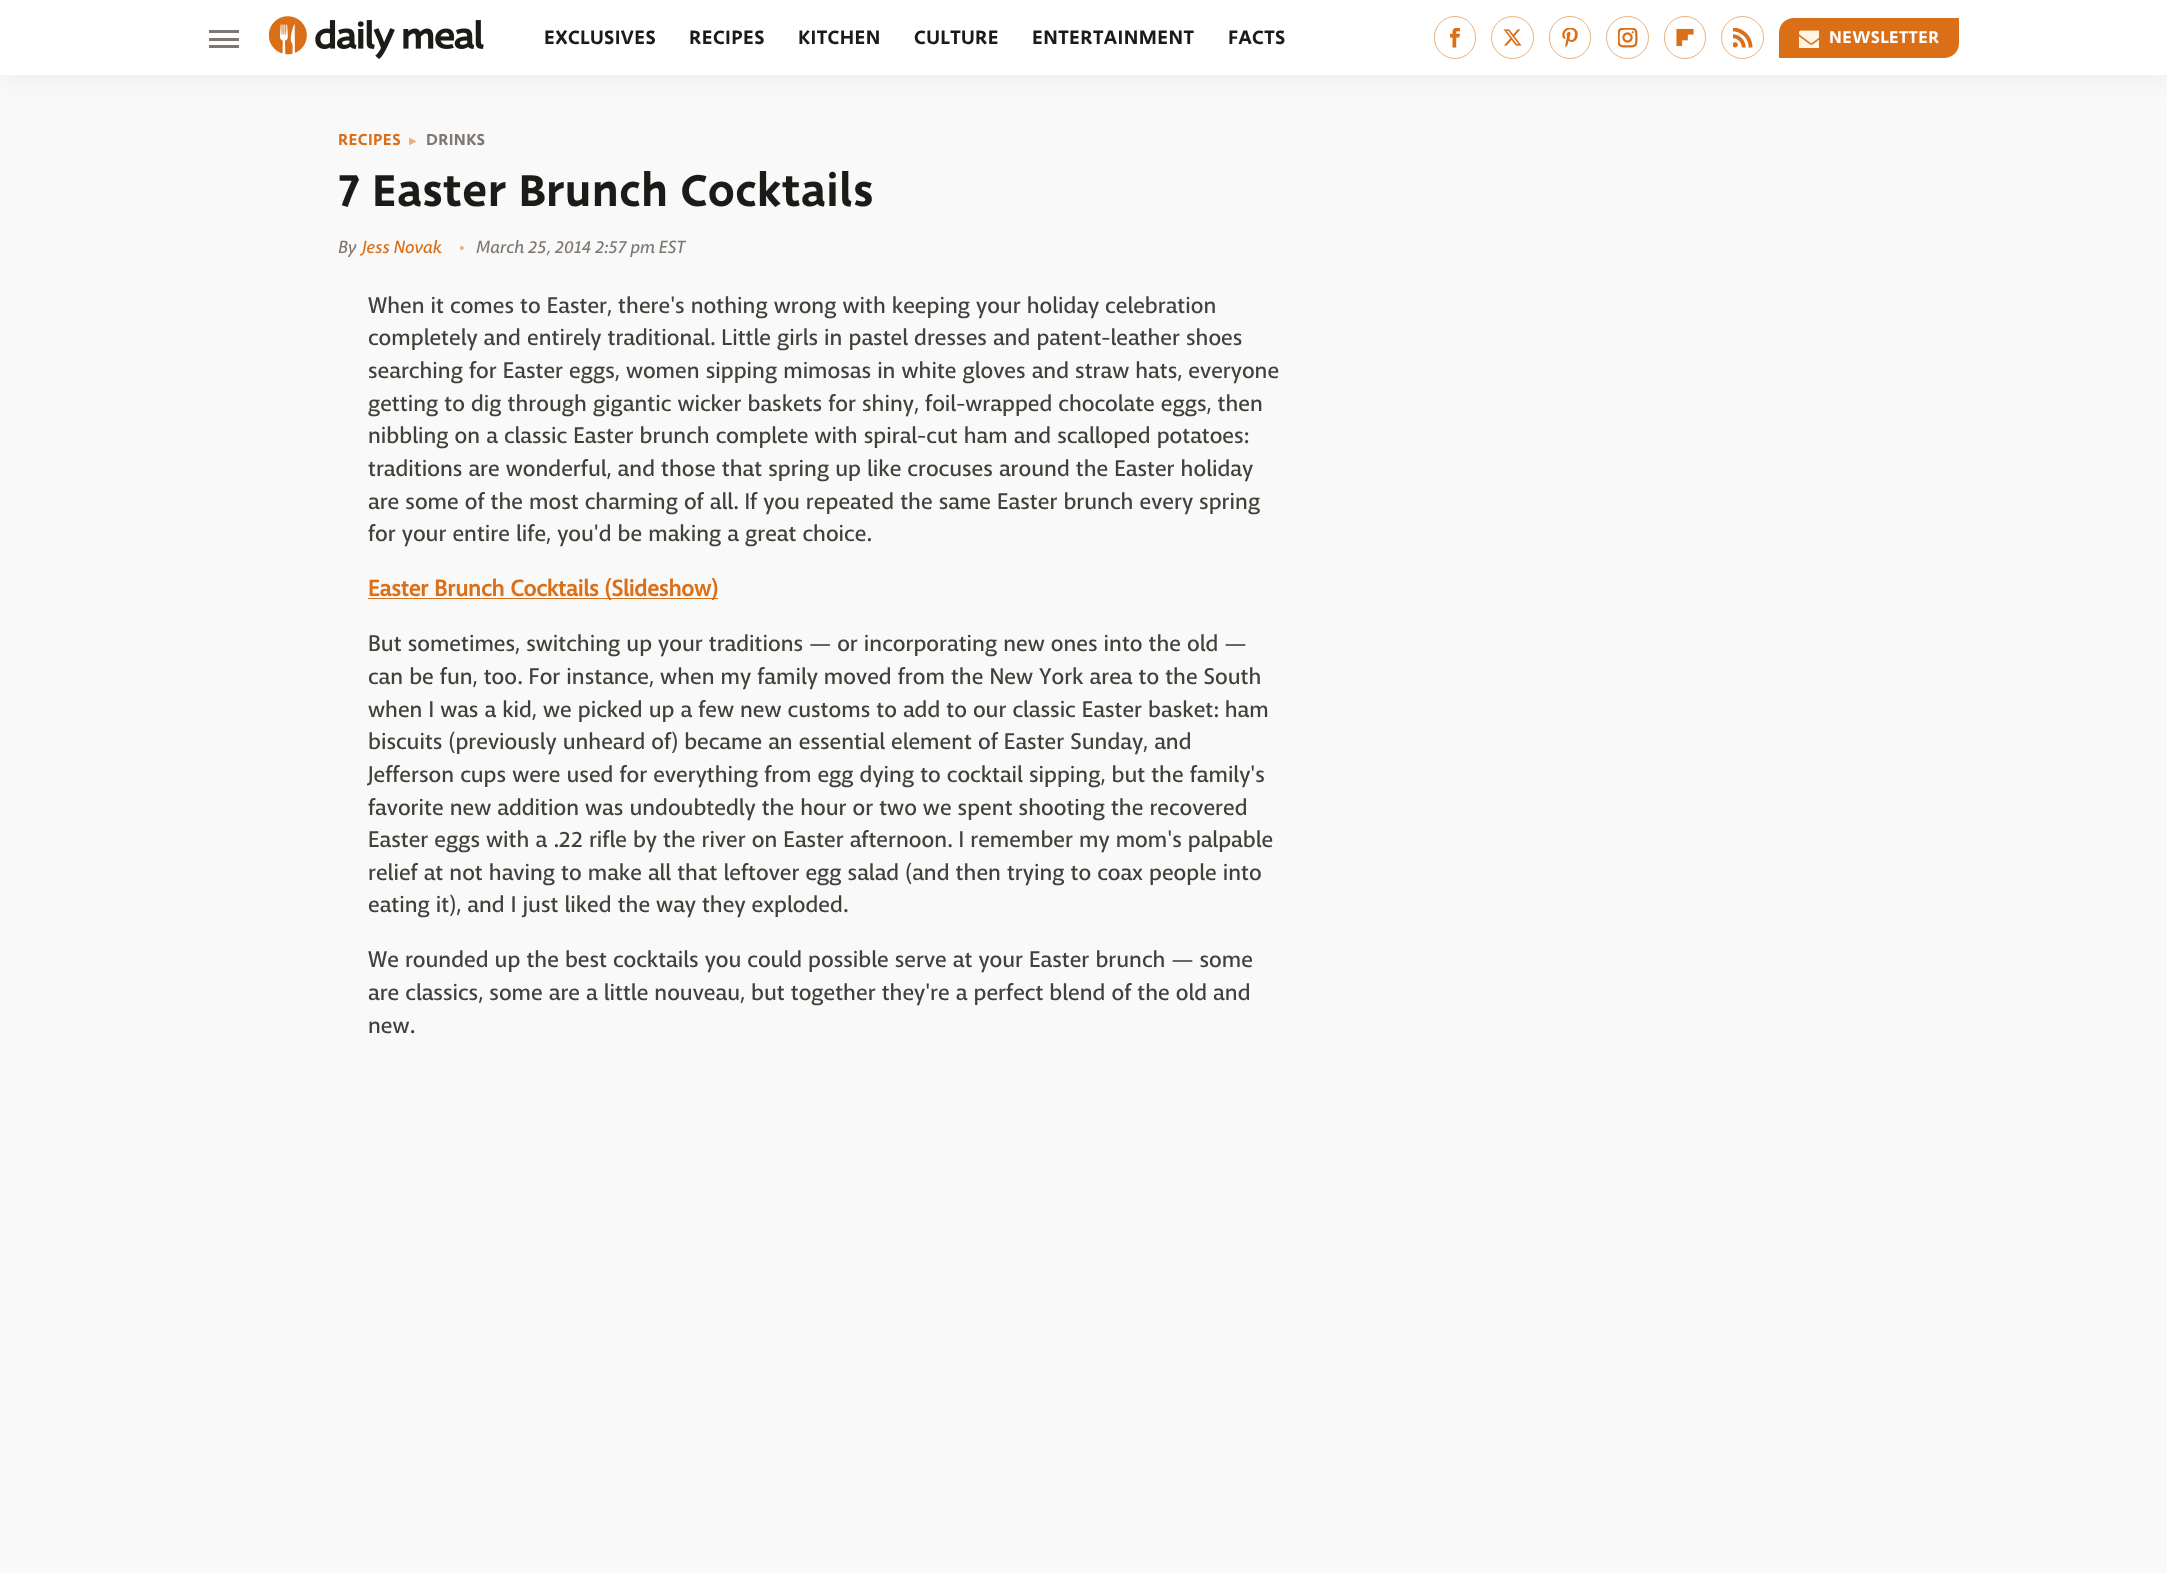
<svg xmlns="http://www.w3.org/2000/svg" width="2167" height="1573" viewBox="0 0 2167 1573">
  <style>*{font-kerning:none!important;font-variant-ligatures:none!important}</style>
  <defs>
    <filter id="blur1" x="-50%" y="-200%" width="200%" height="500%"><feGaussianBlur stdDeviation="12.5"/></filter>
  </defs>
  <rect width="100%" height="100%" fill="#faf9f9"/>
  <rect x="0" y="3" width="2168" height="75" fill="#000000" fill-opacity="0.05" filter="url(#blur1)"/>
  <rect x="0" y="0" width="2167" height="75" fill="#ffffff"/>
  <rect x="209" y="30" width="30" height="3" fill="#7e7873"/>
  <rect x="209" y="38" width="30" height="3" fill="#7e7873"/>
  <rect x="209" y="45" width="30" height="3" fill="#7e7873"/>
  <image x="269" y="16" width="215" height="43" href="img1.png"/>
  <text x="544" y="44" font-family="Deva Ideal" font-size="21.25" font-weight="500" letter-spacing="0.4" fill="#1c1b18">EXCLUSIVES</text>
  <text x="689" y="44" font-family="Deva Ideal" font-size="21.25" font-weight="500" letter-spacing="0.4" fill="#1c1b18">RECIPES</text>
  <text x="798" y="44" font-family="Deva Ideal" font-size="21.25" font-weight="500" letter-spacing="0.4" fill="#1c1b18">KITCHEN</text>
  <text x="914" y="44" font-family="Deva Ideal" font-size="21.25" font-weight="500" letter-spacing="0.4" fill="#1c1b18">CULTURE</text>
  <text x="1032" y="44" font-family="Deva Ideal" font-size="21.25" font-weight="500" letter-spacing="0.4" fill="#1c1b18">ENTERTAINMENT</text>
  <text x="1228" y="44" font-family="Deva Ideal" font-size="21.25" font-weight="500" letter-spacing="0.4" fill="#1c1b18">FACTS</text>
  <rect x="1434.5" y="16.5" width="41" height="42" rx="20.5" fill="none" stroke="#e8b17d"/>
  <image x="1450" y="28" width="10" height="20" href="img2.png"/>
  <circle cx="1512.5" cy="37.5" r="21" fill="none" stroke="#e8b17d"/>
  <image x="1503" y="29" width="19" height="17" href="img3.png"/>
  <rect x="1549.5" y="16.5" width="41" height="42" rx="20.5" fill="none" stroke="#e8b17d"/>
  <image x="1562" y="28" width="16" height="20" href="img4.png"/>
  <circle cx="1627.5" cy="37.5" r="21" fill="none" stroke="#e8b17d"/>
  <image x="1618" y="28" width="20" height="20" href="img5.png"/>
  <rect x="1664.5" y="16.5" width="41" height="42" rx="20.5" fill="none" stroke="#e8b17d"/>
  <image x="1676" y="28" width="18" height="19" href="img6.png"/>
  <circle cx="1742.5" cy="37.5" r="21" fill="none" stroke="#e8b17d"/>
  <image x="1733" y="28" width="20" height="20" href="img7.png"/>
  <path d="M1794 18H1959V43C1959 51.5 1952.5 58 1944 58H1779V33C1779 24.5 1785.5 18 1794 18Z" fill="#da6f18"/>
  <image x="1799" y="30" width="20" height="18" href="img8.png"/>
  <text x="1829" y="43" font-family="Deva Ideal" font-size="18.75" font-weight="500" letter-spacing="0.4" fill="#ffffff">NEWSLETTER</text>
  <text x="338" y="145" font-family="Deva Ideal" font-size="17.5" font-weight="500" letter-spacing="0.4" fill="#da6f18">RECIPES</text>
  <text x="409" y="144" font-family="DejaVu Sans" font-size="10" fill="#e8b17d">▶︎</text>
  <text x="426" y="145" font-family="Deva Ideal" font-size="17.5" font-weight="500" letter-spacing="0.4" fill="#7e7873">DRINKS</text>
  <text x="338" y="206" font-family="Deva Ideal" font-size="48.75" font-weight="500" fill="#1c1b18">7 Easter Brunch Cocktails</text>
  <text x="338" y="253" font-family="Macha" font-size="17.5" font-weight="500" letter-spacing="0.1" fill="#7e7873">By</text>
  <text x="362" y="253" font-family="Macha" font-size="17.5" font-weight="500" letter-spacing="0.1" fill="#da6f18">Jess Novak</text>
  <text x="459" y="253" font-family="Macha" font-size="18.75" font-weight="500" letter-spacing="0.1" fill="#e8b17d">•</text>
  <text x="476" y="253" font-family="Macha" font-size="17.5" font-weight="500" letter-spacing="0.1" fill="#7e7873">March 25, 2014 2:57 pm EST</text>
  <text x="368" y="313" font-family="'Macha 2'" font-size="22.5" font-weight="500" fill="#41403b">When it comes to Easter, there's nothing wrong with keeping your holiday celebration</text>
  <text x="368" y="345" font-family="'Macha 2'" font-size="22.5" font-weight="500" fill="#41403b">completely and entirely traditional. Little girls in pastel dresses and patent-leather shoes</text>
  <text x="368" y="378" font-family="'Macha 2'" font-size="22.5" font-weight="500" fill="#41403b">searching for Easter eggs, women sipping mimosas in white gloves and straw hats, everyone</text>
  <text x="368" y="411" font-family="'Macha 2'" font-size="22.5" font-weight="500" fill="#41403b">getting to dig through gigantic wicker baskets for shiny, foil-wrapped chocolate eggs, then</text>
  <text x="368" y="443" font-family="'Macha 2'" font-size="22.5" font-weight="500" fill="#41403b">nibbling on a classic Easter brunch complete with spiral-cut ham and scalloped potatoes:</text>
  <text x="368" y="476" font-family="'Macha 2'" font-size="22.5" font-weight="500" fill="#41403b">traditions are wonderful, and those that spring up like crocuses around the Easter holiday</text>
  <text x="368" y="509" font-family="'Macha 2'" font-size="22.5" font-weight="500" fill="#41403b">are some of the most charming of all. If you repeated the same Easter brunch every spring</text>
  <text x="368" y="541" font-family="'Macha 2'" font-size="22.5" font-weight="500" fill="#41403b">for your entire life, you'd be making a great choice.</text>
  <rect x="368" y="598" width="350" height="1" fill="#da6f18"/>
  <text x="368" y="596" font-family="Macha" font-size="22.5" font-weight="bold" fill="#da6f18">Easter Brunch Cocktails (Slideshow)</text>
  <text x="368" y="651" font-family="'Macha 2'" font-size="22.5" font-weight="500" fill="#41403b">But sometimes, switching up your traditions — or incorporating new ones into the old —</text>
  <text x="368" y="684" font-family="'Macha 2'" font-size="22.5" font-weight="500" fill="#41403b">can be fun, too. For instance, when my family moved from the New York area to the South</text>
  <text x="368" y="717" font-family="'Macha 2'" font-size="22.5" font-weight="500" fill="#41403b">when I was a kid, we picked up a few new customs to add to our classic Easter basket: ham</text>
  <text x="368" y="749" font-family="'Macha 2'" font-size="22.5" font-weight="500" fill="#41403b">biscuits (previously unheard of) became an essential element of Easter Sunday, and</text>
  <text x="368" y="782" font-family="'Macha 2'" font-size="22.5" font-weight="500" fill="#41403b">Jefferson cups were used for everything from egg dying to cocktail sipping, but the family's</text>
  <text x="368" y="815" font-family="'Macha 2'" font-size="22.5" font-weight="500" fill="#41403b">favorite new addition was undoubtedly the hour or two we spent shooting the recovered</text>
  <text x="368" y="847" font-family="'Macha 2'" font-size="22.5" font-weight="500" fill="#41403b">Easter eggs with a .22 rifle by the river on Easter afternoon. I remember my mom's palpable</text>
  <text x="368" y="880" font-family="'Macha 2'" font-size="22.5" font-weight="500" fill="#41403b">relief at not having to make all that leftover egg salad (and then trying to coax people into</text>
  <text x="368" y="912" font-family="'Macha 2'" font-size="22.5" font-weight="500" fill="#41403b">eating it), and I just liked the way they exploded.</text>
  <text x="368" y="967" font-family="'Macha 2'" font-size="22.5" font-weight="500" fill="#41403b">We rounded up the best cocktails you could possible serve at your Easter brunch — some</text>
  <text x="368" y="1000" font-family="'Macha 2'" font-size="22.5" font-weight="500" fill="#41403b">are classics, some are a little nouveau, but together they're a perfect blend of the old and</text>
  <text x="368" y="1033" font-family="'Macha 2'" font-size="22.5" font-weight="500" fill="#41403b">new.</text>
</svg>
